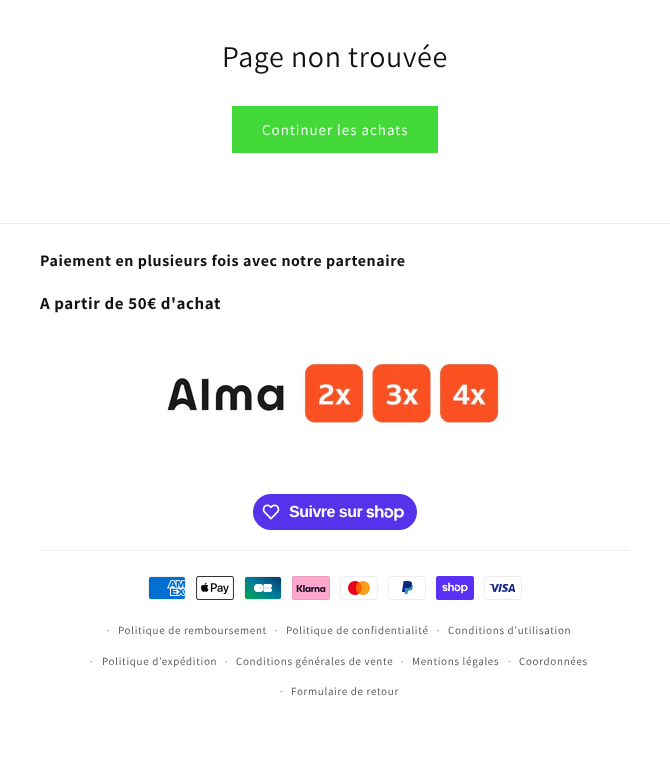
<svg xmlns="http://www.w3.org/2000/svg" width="670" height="760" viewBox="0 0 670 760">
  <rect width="100%" height="100%" fill="#ffffff"/>
  <text x="222" y="67" font-family="Assistant" font-size="30" letter-spacing="0.6" fill="#121212">Page non trouvée</text>
  <rect x="232" y="106" width="206" height="47" fill="#43da39"/>
  <text x="262" y="135" font-family="Assistant" font-size="15" letter-spacing="1" fill="#ffffff">Continuer les achats</text>
  <rect x="0" y="223" width="670" height="1" fill="#ececec"/>
  <text x="40" y="266" font-family="Assistant" font-size="16" font-weight="bold" letter-spacing="0.6" fill="#121212">Paiement en plusieurs fois avec notre partenaire</text>
  <text x="40" y="309" font-family="Assistant" font-size="17" font-weight="bold" letter-spacing="0.6" fill="#121212">A partir de 50€ d'achat</text>
  <image x="166" y="362" width="338" height="64" href="img1.png"/>
  <rect x="253" y="494" width="164" height="36" rx="18" fill="#5433eb"/>
  <image x="262" y="504" width="18" height="16" href="img2.png"/>
  <text x="289" y="517" font-family="Liberation Sans" font-size="16" font-weight="bold" letter-spacing="-0.5" fill="#ffffff">Suivre sur</text>
  <image x="366" y="505" width="38" height="16" href="img3.png"/>
  <rect x="40" y="550" width="590" height="1" fill="#ececec"/>
  <image x="148" y="576" width="38" height="24" href="img4.png"/>
  <image x="196" y="576" width="38" height="24" href="img5.png"/>
  <image x="244" y="576" width="38" height="24" href="img6.png"/>
  <image x="292" y="576" width="38" height="24" href="img7.png"/>
  <image x="340" y="576" width="38" height="24" href="img8.png"/>
  <image x="388" y="576" width="38" height="24" href="img9.png"/>
  <image x="436" y="576" width="38" height="24" href="img10.png"/>
  <image x="484" y="576" width="38" height="24" href="img11.png"/>
  <text x="107" y="634" font-family="Assistant" font-size="10" letter-spacing="0.7" fill="#4d4d4d">·</text>
  <text x="118" y="634" font-family="Assistant" font-size="11" letter-spacing="0.7" fill="#4d4d4d">Politique de remboursement</text>
  <text x="275" y="634" font-family="Assistant" font-size="10" letter-spacing="0.7" fill="#4d4d4d">·</text>
  <text x="286" y="634" font-family="Assistant" font-size="11" letter-spacing="0.7" fill="#4d4d4d">Politique de confidentialité</text>
  <text x="437" y="634" font-family="Assistant" font-size="10" letter-spacing="0.7" fill="#4d4d4d">·</text>
  <text x="448" y="634" font-family="Assistant" font-size="11" letter-spacing="0.7" fill="#4d4d4d">Conditions d’utilisation</text>
  <text x="90" y="665" font-family="Assistant" font-size="10" letter-spacing="0.7" fill="#4d4d4d">·</text>
  <text x="102" y="665" font-family="Assistant" font-size="11" letter-spacing="0.7" fill="#4d4d4d">Politique d’expédition</text>
  <text x="225" y="665" font-family="Assistant" font-size="10" letter-spacing="0.7" fill="#4d4d4d">·</text>
  <text x="236" y="665" font-family="Assistant" font-size="11" letter-spacing="0.7" fill="#4d4d4d">Conditions générales de vente</text>
  <text x="401" y="665" font-family="Assistant" font-size="10" letter-spacing="0.7" fill="#4d4d4d">·</text>
  <text x="412" y="665" font-family="Assistant" font-size="11" letter-spacing="0.7" fill="#4d4d4d">Mentions légales</text>
  <text x="508" y="665" font-family="Assistant" font-size="10" letter-spacing="0.7" fill="#4d4d4d">·</text>
  <text x="519" y="665" font-family="Assistant" font-size="11" letter-spacing="0.7" fill="#4d4d4d">Coordonnées</text>
  <text x="280" y="695" font-family="Assistant" font-size="10" letter-spacing="0.7" fill="#4d4d4d">·</text>
  <text x="291" y="695" font-family="Assistant" font-size="11" letter-spacing="0.7" fill="#4d4d4d">Formulaire de retour</text>
</svg>
